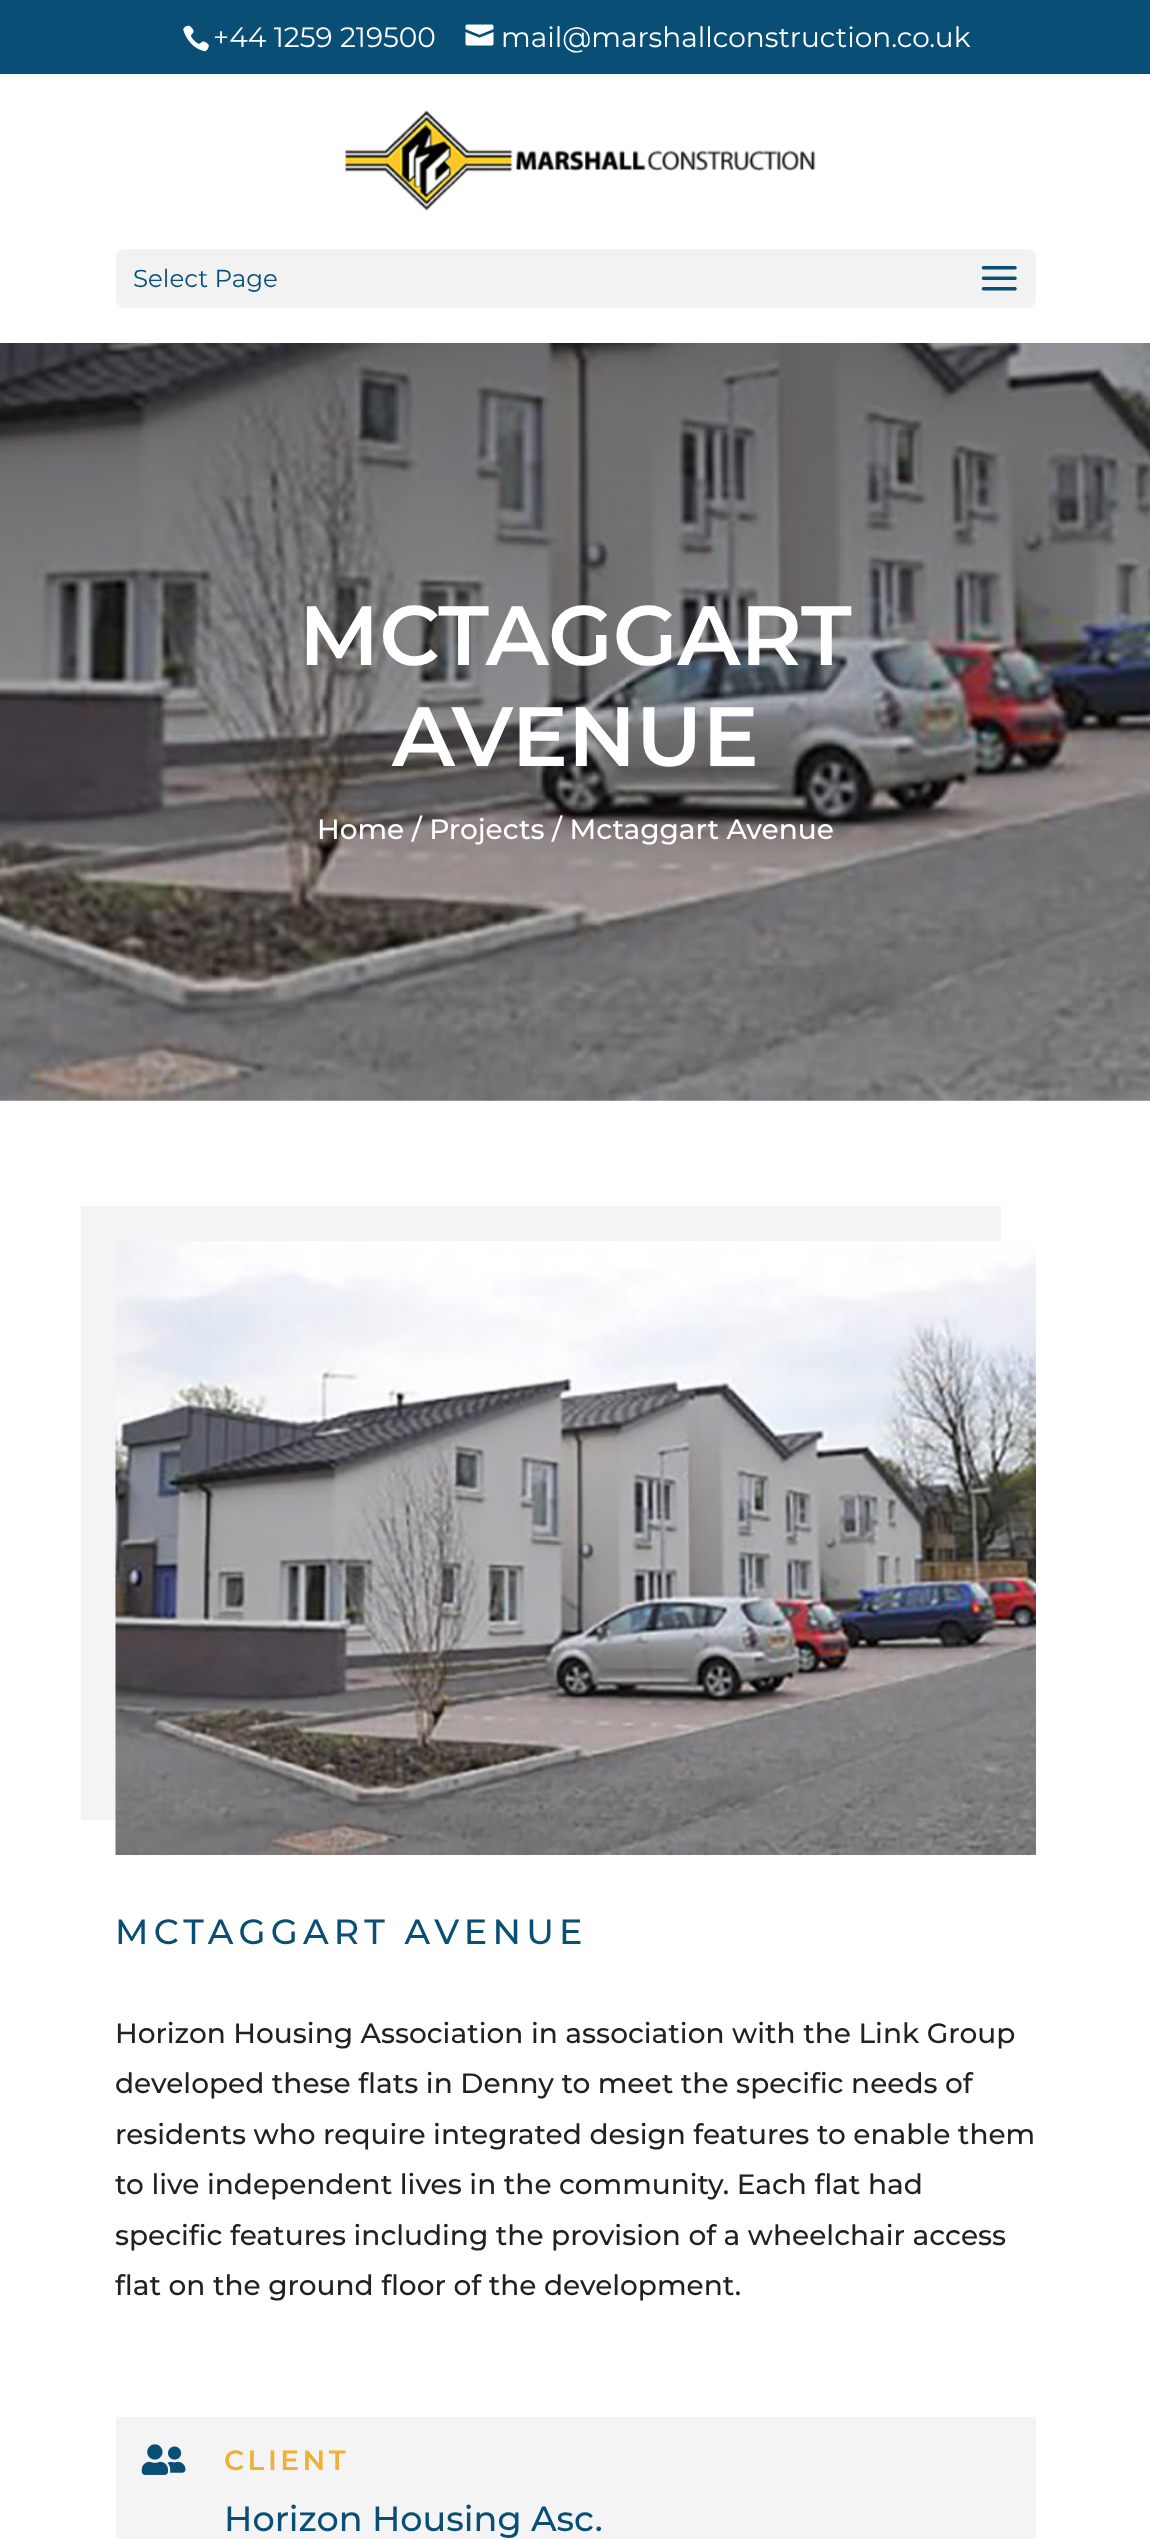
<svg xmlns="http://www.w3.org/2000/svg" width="1150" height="2539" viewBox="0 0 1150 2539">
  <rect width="100%" height="100%" fill="#ffffff"/>
  <rect x="0" y="0" width="1150" height="74" fill="#094f75"/>
  <image x="183" y="25" width="26" height="27" href="img1.png"/>
  <text x="213" y="47" font-family="Montserrat" font-size="28" fill="#ffffff">+44 1259 219500</text>
  <image x="465" y="24" width="29" height="22" href="img2.png"/>
  <text x="501" y="47" font-family="Montserrat" font-size="28" fill="#ffffff">mail@marshallconstruction.co.uk</text>
  <image x="345" y="110" width="471" height="101" href="img3.png"/>
  <rect x="116" y="249" width="920" height="59" rx="9" fill="#f2f2f2"/>
  <text x="133" y="287" font-family="Montserrat" font-size="24.5" fill="#094f75">Select Page</text>
  <image x="981" y="266" width="36" height="25" href="img4.png"/>
  <image x="0" y="343" width="1150" height="758" href="img5.png"/>
  <text x="299" y="665" font-family="Montserrat" font-size="84" font-weight="600" fill="#ffffff">MCTAGGART</text>
  <text x="392" y="766" font-family="Montserrat" font-size="84" font-weight="600" fill="#ffffff">AVENUE</text>
  <text x="317" y="839" font-family="Montserrat" font-size="28" font-weight="500" fill="#ffffff">Home / Projects / Mctaggart Avenue</text>
  <path d="M81 1206V1820H116V1241H1001V1206Z" fill="#f4f4f4"/>
  <image x="115" y="1241" width="921" height="614" href="img6.png"/>
  <text x="115" y="1944" font-family="Montserrat" font-size="35" font-weight="500" letter-spacing="5.25" fill="#094f75">MCTAGGART AVENUE</text>
  <text x="115" y="2043" font-family="Montserrat" font-size="28" font-weight="500" fill="#212121">Horizon Housing Association in association with the Link Group</text>
  <text x="115" y="2093" font-family="Montserrat" font-size="28" font-weight="500" fill="#212121">developed these flats in Denny to meet the specific needs of</text>
  <text x="115" y="2144" font-family="Montserrat" font-size="28" font-weight="500" fill="#212121">residents who require integrated design features to enable them</text>
  <text x="115" y="2194" font-family="Montserrat" font-size="28" font-weight="500" fill="#212121">to live independent lives in the community. Each flat had</text>
  <text x="115" y="2245" font-family="Montserrat" font-size="28" font-weight="500" fill="#212121">specific features including the provision of a wheelchair access</text>
  <text x="115" y="2295" font-family="Montserrat" font-size="28" font-weight="500" fill="#212121">flat on the ground floor of the development.</text>
  <rect x="116" y="2417" width="920" height="122" fill="#f4f4f4"/>
  <image x="141" y="2444" width="45" height="31" href="img7.png"/>
  <text x="224" y="2470" font-family="Montserrat" font-size="28" font-weight="600" letter-spacing="3.5" fill="#eeb036">CLIENT</text>
  <text x="224" y="2531" font-family="Montserrat" font-size="35" font-weight="500" fill="#094f75">Horizon Housing Asc.</text>
</svg>
